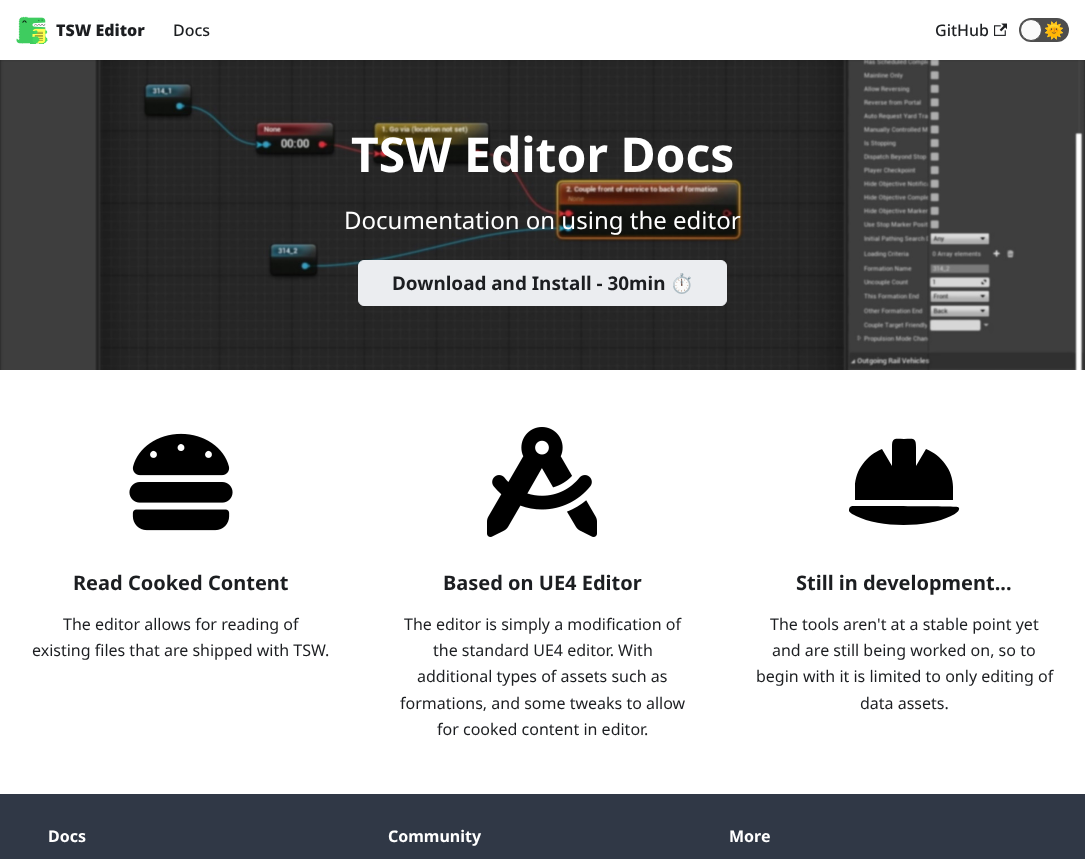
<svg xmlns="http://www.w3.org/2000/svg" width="1085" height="859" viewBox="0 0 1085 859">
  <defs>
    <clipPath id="clip1"><rect x="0" y="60" width="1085" height="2"/></clipPath>
    <filter id="blur1" x="-50%" y="-200%" width="200%" height="500%"><feGaussianBlur stdDeviation="1"/></filter>
  </defs>
  <rect width="100%" height="100%" fill="#ffffff"/>
  <image x="0" y="60" width="1085" height="310" href="img3.png"/>
  <g clip-path="url(#clip1)">
    <rect x="0" y="1" width="1085" height="60" fill="#000000" fill-opacity="0.1" filter="url(#blur1)"/>
  </g>
  <image x="16" y="16" width="32" height="28" href="img1.png"/>
  <text x="56" y="36" font-family="Noto Sans" font-size="16" font-weight="900" fill="#1c1e21">TSW Editor</text>
  <text x="173" y="36" font-family="Noto Sans" font-size="16" font-weight="500" fill="#1c1e21">Docs</text>
  <text x="935" y="36" font-family="Noto Sans" font-size="16" font-weight="500" fill="#1c1e21">GitHub</text>
  <image x="994" y="23" width="13" height="13" href="img2.png"/>
  <rect x="1019" y="18" width="50" height="24" rx="12" fill="#4d4d4d"/>
  <circle cx="1031" cy="30" r="10.5" fill="#fafafa" stroke="#4d4d4d"/>
  <text x="1044" y="36" font-family="Noto Color Emoji" font-size="16" fill="#1c1e21">🌞</text>
  <text x="351" y="172" font-family="Noto Sans" font-size="48" font-weight="bold" fill="#ffffff">TSW Editor Docs</text>
  <text x="344" y="229" font-family="Noto Sans" font-size="24" fill="#ffffff">Documentation on using the editor</text>
  <rect x="358.5" y="260.5" width="368" height="45" rx="5.5" fill="#ebedf0" stroke="#ebedf0"/>
  <text x="392" y="290" font-family="Noto Sans" font-size="18.9" font-weight="bold" fill="#1c1e21">Download and Install - 30min</text>
  <text x="670" y="290" font-family="Noto Color Emoji" font-size="18.9" font-weight="bold" fill="#1c1e21">⏱️</text>
  <image x="129" y="433" width="104" height="98" href="img4.png"/>
  <text x="73" y="590" font-family="Noto Sans" font-size="20" font-weight="bold" fill="#1c1e21">Read Cooked Content</text>
  <text x="63" y="630" font-family="Noto Sans" font-size="16" fill="#1c1e21">The editor allows for reading of</text>
  <text x="32" y="656" font-family="Noto Sans" font-size="16" fill="#1c1e21">existing files that are shipped with TSW.</text>
  <image x="487" y="427" width="110" height="110" href="img5.png"/>
  <text x="443" y="590" font-family="Noto Sans" font-size="20" font-weight="bold" fill="#1c1e21">Based on UE4 Editor</text>
  <text x="404" y="630" font-family="Noto Sans" font-size="16" fill="#1c1e21">The editor is simply a modification of</text>
  <text x="433" y="656" font-family="Noto Sans" font-size="16" fill="#1c1e21">the standard UE4 editor. With</text>
  <text x="417" y="682" font-family="Noto Sans" font-size="16" fill="#1c1e21">additional types of assets such as</text>
  <text x="400" y="709" font-family="Noto Sans" font-size="16" fill="#1c1e21">formations, and some tweaks to allow</text>
  <text x="437" y="735" font-family="Noto Sans" font-size="16" fill="#1c1e21">for cooked content in editor.</text>
  <path d="M953 487C953 470 941 455 926 449L916 466V447C916 437 913 439 904 439C895 439 892 437 892 447V466L882 449C867 455 855 470 855 487V500H953ZM959 508L958 507C955 506 863 506 852 506L850 507C849 508 849 510 849 511C850 513 854 515 856 516C880 528 927 528 951 516C953 515 960 512 959 508Z" fill="#000000"/>
  <text x="796" y="590" font-family="Noto Sans" font-size="20" font-weight="bold" fill="#1c1e21">Still in development...</text>
  <text x="770" y="630" font-family="Noto Sans" font-size="16" fill="#1c1e21">The tools aren't at a stable point yet</text>
  <text x="772" y="656" font-family="Noto Sans" font-size="16" fill="#1c1e21">and are still being worked on, so to</text>
  <text x="756" y="682" font-family="Noto Sans" font-size="16" fill="#1c1e21">begin with it is limited to only editing of</text>
  <text x="860" y="709" font-family="Noto Sans" font-size="16" fill="#1c1e21">data assets.</text>
  <rect x="0" y="794" width="1085" height="65" fill="#303846"/>
  <text x="48" y="842" font-family="Noto Sans" font-size="16" font-weight="bold" fill="#ffffff">Docs</text>
  <text x="388" y="842" font-family="Noto Sans" font-size="16" font-weight="bold" fill="#ffffff">Community</text>
  <text x="729" y="842" font-family="Noto Sans" font-size="16" font-weight="bold" fill="#ffffff">More</text>
</svg>
